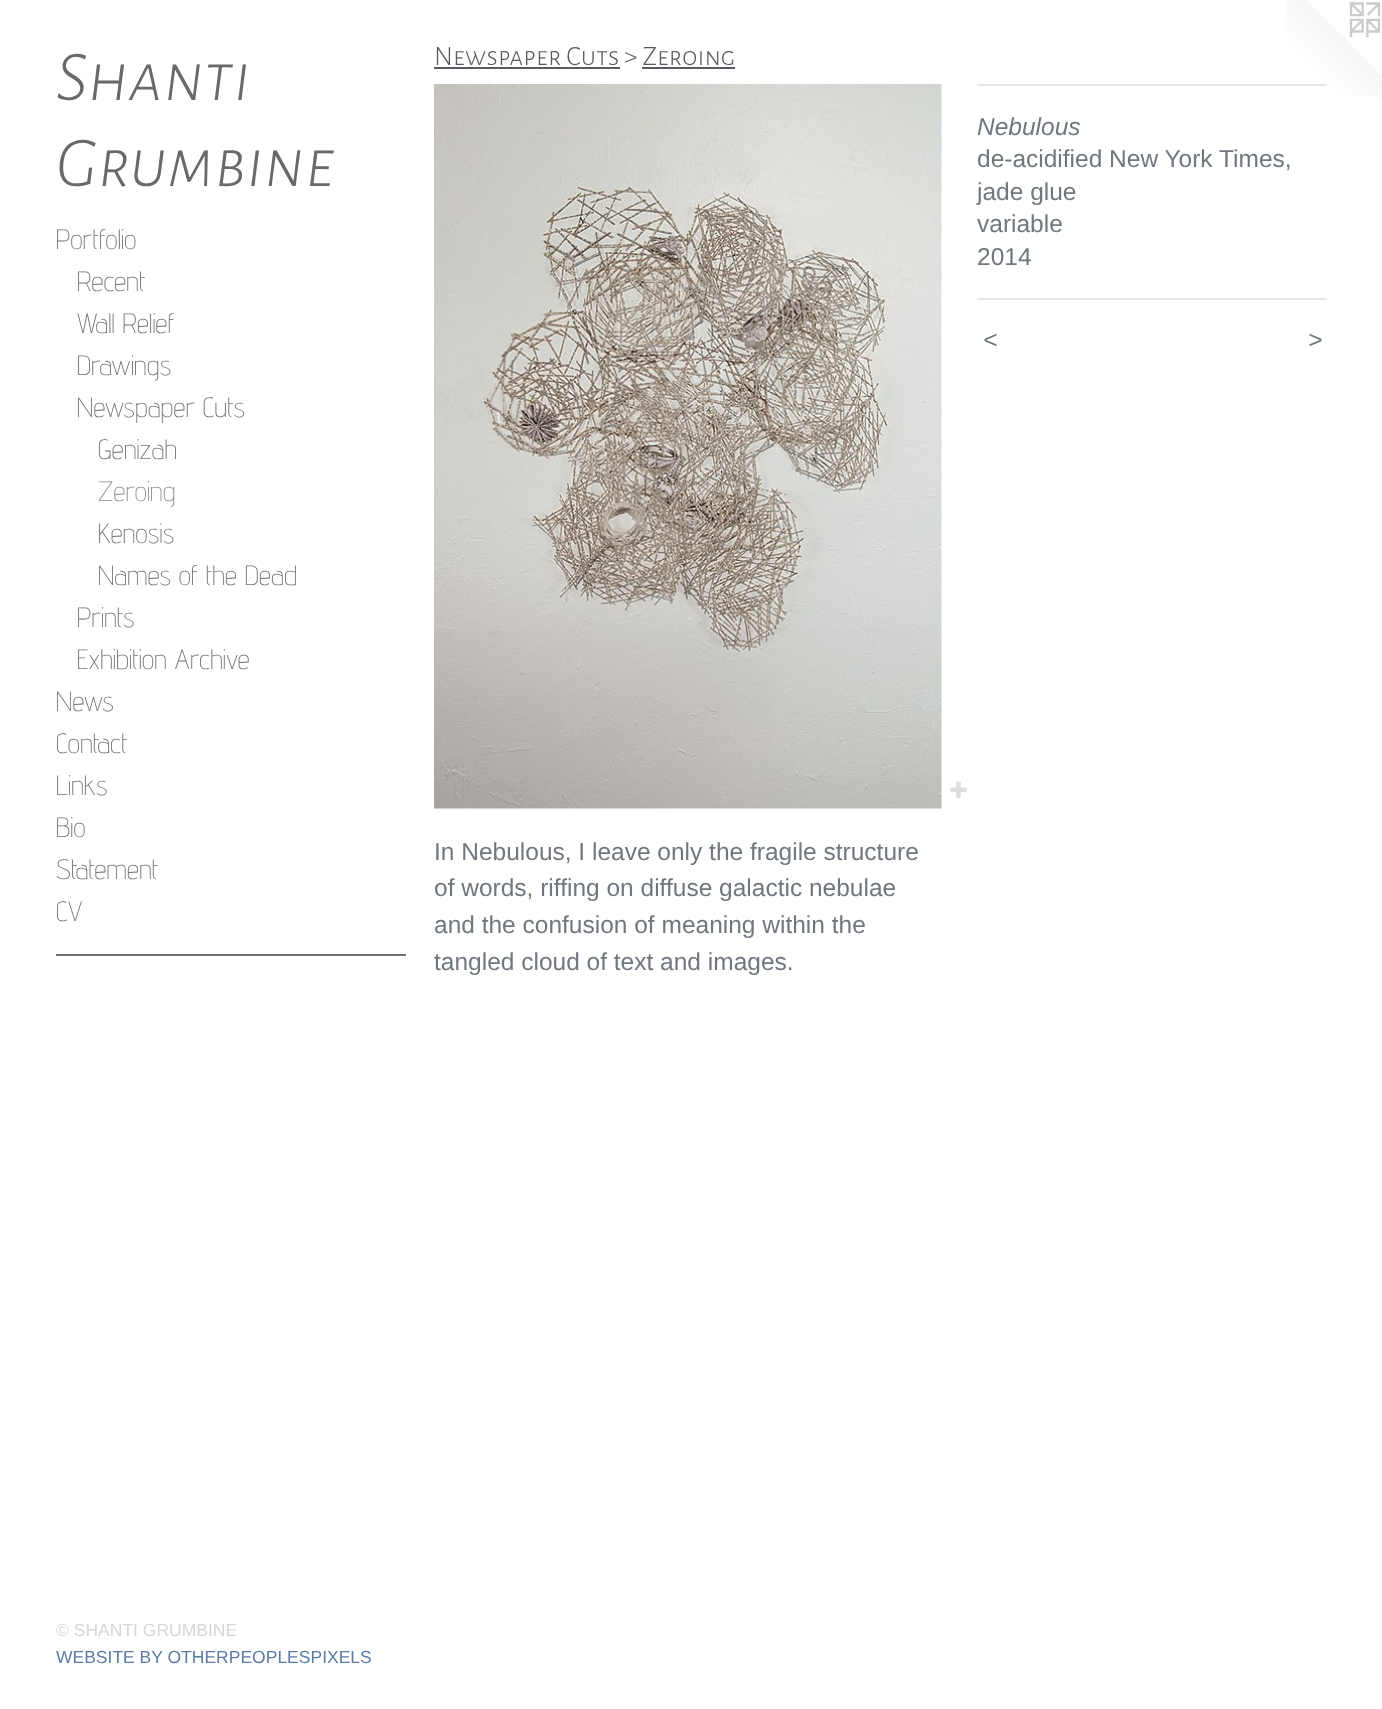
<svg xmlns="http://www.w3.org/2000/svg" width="1382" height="1709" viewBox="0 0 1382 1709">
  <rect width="100%" height="100%" fill="#ffffff"/>
  <text x="56" y="100" font-family="Alegreya Sans SC" font-size="72" font-weight="300" font-style="italic" fill="#696969">Shanti</text>
  <text x="56" y="186" font-family="Alegreya Sans SC" font-size="72" font-weight="300" font-style="italic" fill="#696969">Grumbine</text>
  <text x="56" y="249" font-family="Advent Pro" font-size="28" font-weight="200" fill="#757070">Portfolio</text>
  <text x="77" y="291" font-family="Advent Pro" font-size="28" font-weight="200" fill="#757070">Recent</text>
  <text x="77" y="333" font-family="Advent Pro" font-size="28" font-weight="200" fill="#757070">Wall Relief</text>
  <text x="77" y="375" font-family="Advent Pro" font-size="28" font-weight="200" fill="#757070">Drawings</text>
  <text x="77" y="417" font-family="Advent Pro" font-size="28" font-weight="200" fill="#757070">Newspaper Cuts</text>
  <text x="98" y="459" font-family="Advent Pro" font-size="28" font-weight="200" fill="#757070">Genizah</text>
  <text x="98" y="501" font-family="Advent Pro" font-size="28" font-weight="200" fill="#8f8989">Zeroing</text>
  <text x="98" y="543" font-family="Advent Pro" font-size="28" font-weight="200" fill="#757070">Kenosis</text>
  <text x="98" y="585" font-family="Advent Pro" font-size="28" font-weight="200" fill="#757070">Names of the Dead</text>
  <text x="77" y="627" font-family="Advent Pro" font-size="28" font-weight="200" fill="#757070">Prints</text>
  <text x="77" y="669" font-family="Advent Pro" font-size="28" font-weight="200" fill="#757070">Exhibition Archive</text>
  <text x="56" y="711" font-family="Advent Pro" font-size="28" font-weight="200" fill="#757070">News</text>
  <text x="56" y="753" font-family="Advent Pro" font-size="28" font-weight="200" fill="#757070">Contact</text>
  <text x="56" y="795" font-family="Advent Pro" font-size="28" font-weight="200" fill="#757070">Links</text>
  <text x="56" y="837" font-family="Advent Pro" font-size="28" font-weight="200" fill="#757070">Bio</text>
  <text x="56" y="879" font-family="Advent Pro" font-size="28" font-weight="200" fill="#757070">Statement</text>
  <text x="56" y="921" font-family="Advent Pro" font-size="28" font-weight="200" fill="#757070">CV</text>
  <rect x="56" y="954" width="350" height="2" fill="#757070"/>
  <text x="56" y="1636" font-family="Liberation Sans" font-size="17.5" fill="#d6d6d6">© SHANTI GRUMBINE</text>
  <text x="56" y="1663" font-family="Liberation Sans" font-size="17.5" fill="#5b7aa4">WEBSITE BY OTHERPEOPLESPIXELS</text>
  <text x="434" y="65" font-family="Alegreya Sans SC" font-size="28" font-weight="300" fill="#565b61">Newspaper Cuts &gt; Zeroing</text>
  <rect x="434" y="67" width="186" height="2" fill="#565b61"/>
  <rect x="642" y="67" width="93" height="2" fill="#565b61"/>
  <image x="434" y="84" width="508" height="725" href="img1.png"/>
  <image x="950" y="781" width="17" height="17" href="img2.png"/>
  <image x="1285" y="0" width="97" height="97" href="img3.png"/>
  <rect x="977" y="84" width="350" height="2" fill="#e3e4e5"/>
  <text x="977" y="135" font-family="Liberation Sans" font-size="24.5" font-style="italic" fill="#71777f">Nebulous</text>
  <text x="977" y="167" font-family="Liberation Sans" font-size="24.5" fill="#71777f">de-acidified New York Times,</text>
  <text x="977" y="200" font-family="Liberation Sans" font-size="24.5" fill="#71777f">jade glue</text>
  <text x="977" y="232" font-family="Liberation Sans" font-size="24.5" fill="#71777f">variable</text>
  <text x="977" y="265" font-family="Liberation Sans" font-size="24.5" fill="#71777f">2014</text>
  <rect x="977" y="298" width="350" height="2" fill="#e3e4e5"/>
  <text x="983" y="348" font-family="Liberation Sans" font-size="24.5" font-style="italic" letter-spacing="2" fill="#71777f">&lt;</text>
  <text x="1308" y="348" font-family="Liberation Sans" font-size="24.5" font-style="italic" letter-spacing="2" fill="#71777f">&gt;</text>
  <text x="434" y="860" font-family="Liberation Sans" font-size="24.5" fill="#71777f">In Nebulous, I leave only the fragile structure</text>
  <text x="434" y="896" font-family="Liberation Sans" font-size="24.5" fill="#71777f">of words, riffing on diffuse galactic nebulae</text>
  <text x="434" y="933" font-family="Liberation Sans" font-size="24.5" fill="#71777f">and the confusion of meaning within the</text>
  <text x="434" y="970" font-family="Liberation Sans" font-size="24.5" fill="#71777f">tangled cloud of text and images.</text>
</svg>
